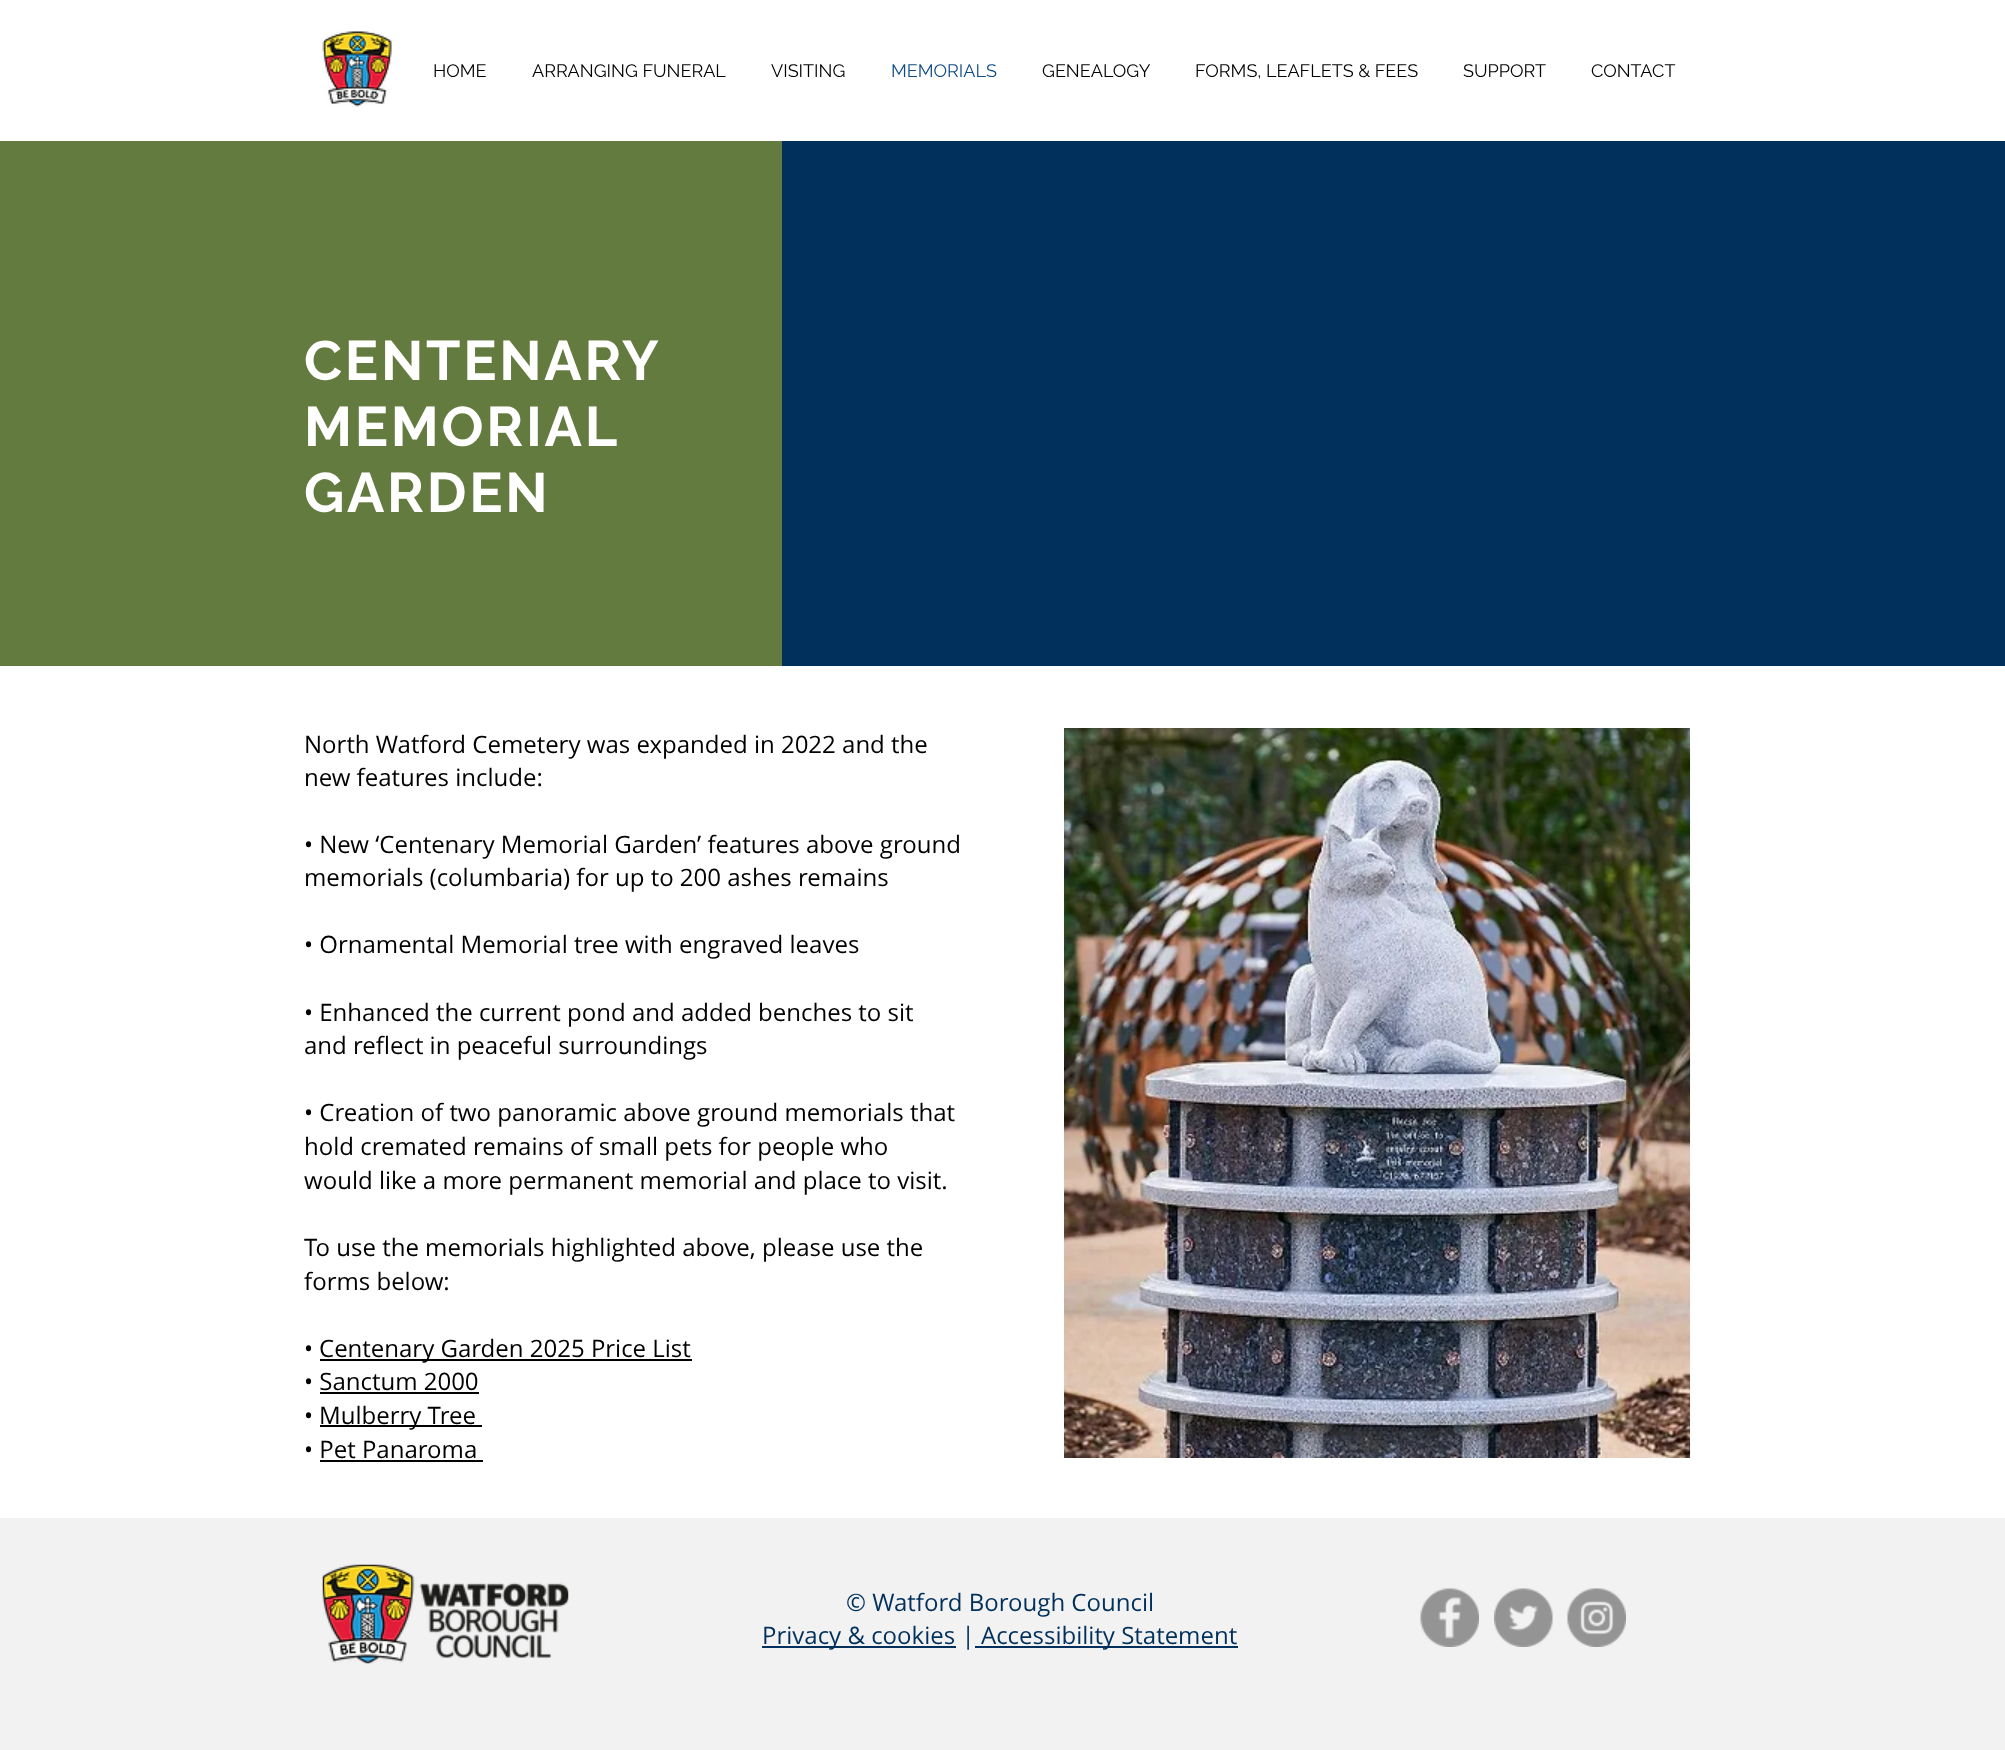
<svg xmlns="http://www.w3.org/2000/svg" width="2005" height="1750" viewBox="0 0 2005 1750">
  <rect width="100%" height="100%" fill="#ffffff"/>
  <image x="322" y="31" width="70" height="76" href="img1.png"/>
  <text x="433" y="77" font-family="Raleway" font-size="18" fill="#000000">HOME</text>
  <text x="532" y="77" font-family="Raleway" font-size="18" fill="#000000">ARRANGING FUNERAL</text>
  <text x="771" y="77" font-family="Raleway" font-size="18" fill="#000000">VISITING</text>
  <text x="891" y="77" font-family="Raleway" font-size="18" fill="#0f4c85">MEMORIALS</text>
  <text x="1042" y="77" font-family="Raleway" font-size="18" fill="#000000">GENEALOGY</text>
  <text x="1195" y="77" font-family="Raleway" font-size="18" fill="#000000">FORMS, LEAFLETS &amp; FEES</text>
  <text x="1463" y="77" font-family="Raleway" font-size="18" fill="#000000">SUPPORT</text>
  <text x="1591" y="77" font-family="Raleway" font-size="18" fill="#000000">CONTACT</text>
  <rect x="0" y="141" width="782" height="525" fill="#637b3e"/>
  <text x="304" y="380" font-family="Raleway" font-size="55.5" font-weight="bold" letter-spacing="2.75" fill="#ffffff">CENTENARY</text>
  <text x="304" y="446" font-family="Raleway" font-size="55.5" font-weight="bold" letter-spacing="2.75" fill="#ffffff">MEMORIAL</text>
  <text x="304" y="512" font-family="Raleway" font-size="55.5" font-weight="bold" letter-spacing="2.75" fill="#ffffff">GARDEN</text>
  <rect x="782" y="141" width="1223" height="525" fill="#00305b"/>
  <text x="304" y="753" font-family="Open Sans" font-size="24" fill="#000000">North Watford Cemetery was expanded in 2022 and the</text>
  <text x="304" y="786" font-family="Open Sans" font-size="24" fill="#000000">new features include:</text>
  <text x="304" y="853" font-family="Open Sans" font-size="24" fill="#000000">• New ‘Centenary Memorial Garden’ features above ground</text>
  <text x="304" y="886" font-family="Open Sans" font-size="24" fill="#000000">memorials (columbaria) for up to 200 ashes remains</text>
  <text x="304" y="953" font-family="Open Sans" font-size="24" fill="#000000">• Ornamental Memorial tree with engraved leaves</text>
  <text x="304" y="1021" font-family="Open Sans" font-size="24" fill="#000000">• Enhanced the current pond and added benches to sit</text>
  <text x="304" y="1054" font-family="Open Sans" font-size="24" fill="#000000">and reflect in peaceful surroundings</text>
  <text x="304" y="1121" font-family="Open Sans" font-size="24" fill="#000000">• Creation of two panoramic above ground memorials that</text>
  <text x="304" y="1155" font-family="Open Sans" font-size="24" fill="#000000">hold cremated remains of small pets for people who</text>
  <text x="304" y="1189" font-family="Open Sans" font-size="24" fill="#000000">would like a more permanent memorial and place to visit.</text>
  <text x="304" y="1256" font-family="Open Sans" font-size="24" fill="#000000">To use the memorials highlighted above, please use the</text>
  <text x="304" y="1290" font-family="Open Sans" font-size="24" fill="#000000">forms below:</text>
  <text x="304" y="1357" font-family="Open Sans" font-size="24" fill="#000000">•</text>
  <rect x="320" y="1359" width="372" height="2" fill="#000000"/>
  <text x="319" y="1357" font-family="Open Sans" font-size="24" fill="#000000">Centenary Garden 2025 Price List</text>
  <text x="304" y="1390" font-family="Open Sans" font-size="24" fill="#000000">• Sanctum 2000</text>
  <rect x="320" y="1392" width="159" height="2" fill="#000000"/>
  <text x="304" y="1424" font-family="Open Sans" font-size="24" fill="#000000">•</text>
  <rect x="320" y="1425" width="162" height="2" fill="#000000"/>
  <text x="319" y="1424" font-family="Open Sans" font-size="24" fill="#000000">Mulberry Tree</text>
  <text x="304" y="1458" font-family="Open Sans" font-size="24" fill="#000000">• Pet Panaroma</text>
  <rect x="320" y="1460" width="163" height="2" fill="#000000"/>
  <image x="1064" y="728" width="627" height="730" href="img2.png"/>
  <rect x="0" y="1518" width="2005" height="232" fill="#f2f2f2"/>
  <image x="322" y="1564" width="247" height="100" href="img3.png"/>
  <text x="846" y="1611" font-family="Open Sans" font-size="24" fill="#00305b">© Watford Borough Council</text>
  <rect x="762" y="1646" width="194" height="2" fill="#00305b"/>
  <text x="762" y="1644" font-family="Open Sans" font-size="24" fill="#00305b">Privacy &amp; cookies |</text>
  <rect x="975" y="1646" width="263" height="2" fill="#00305b"/>
  <text x="981" y="1644" font-family="Open Sans" font-size="24" fill="#00305b">Accessibility Statement</text>
  <image x="1420" y="1588" width="59" height="59" href="img4.png"/>
  <image x="1494" y="1588" width="59" height="59" href="img5.png"/>
  <image x="1567" y="1588" width="59" height="59" href="img6.png"/>
</svg>
